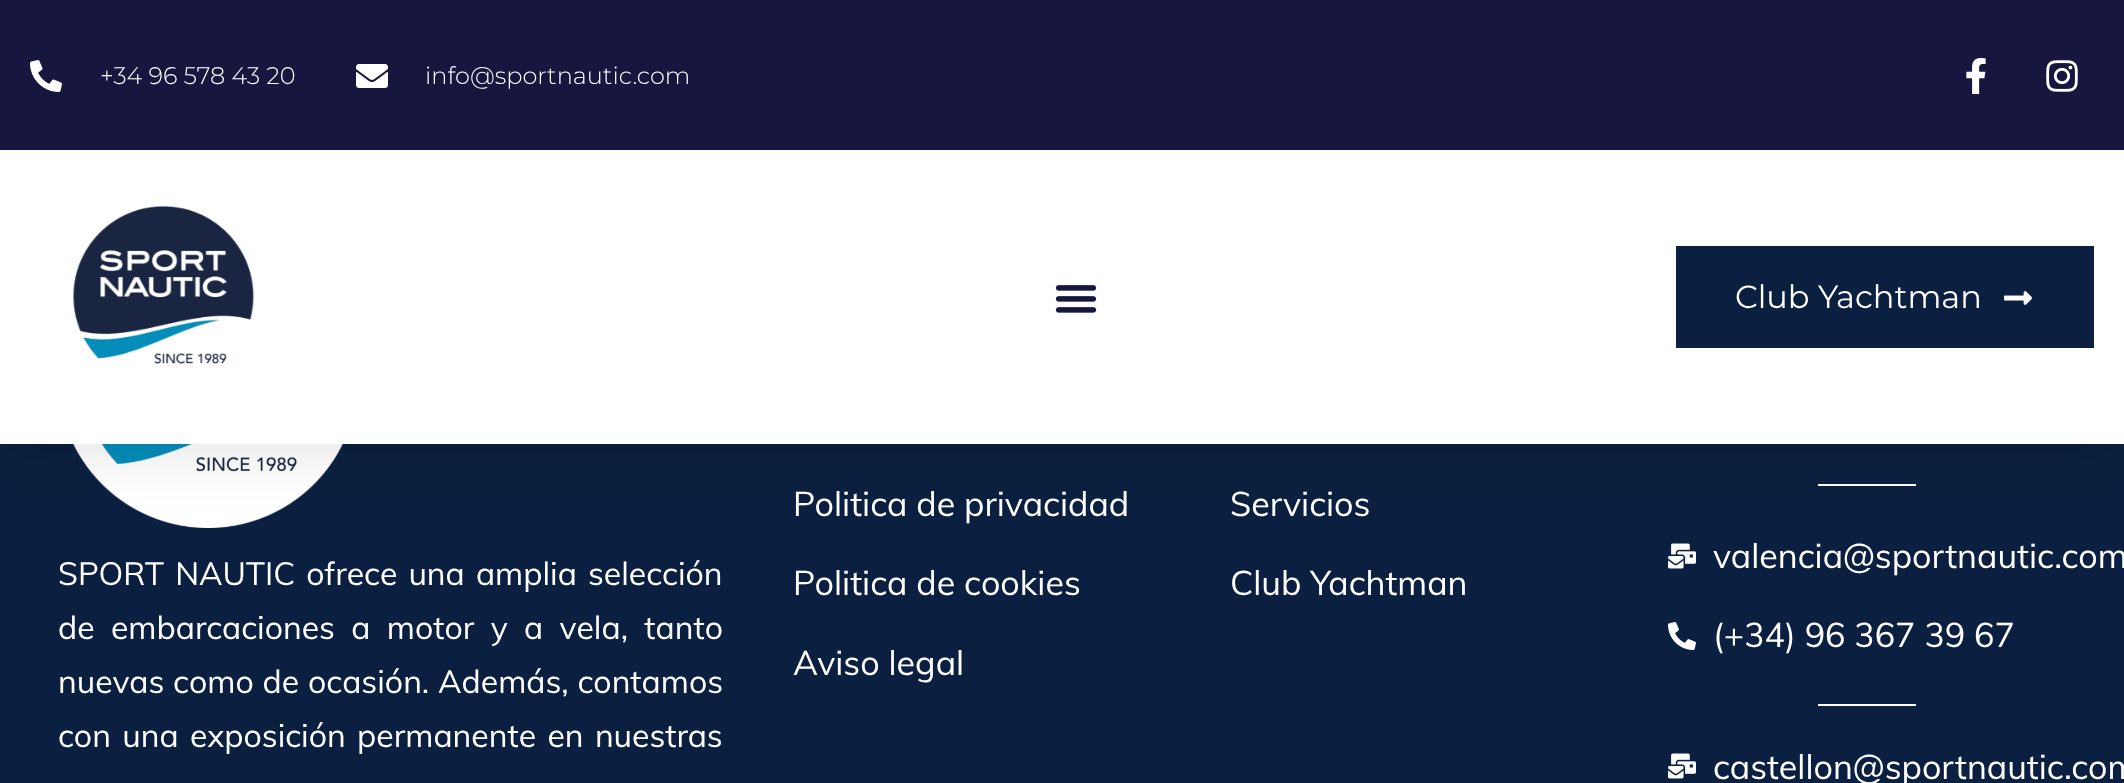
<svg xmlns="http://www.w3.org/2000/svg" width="2124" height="783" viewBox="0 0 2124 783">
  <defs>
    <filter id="blur1" x="-50%" y="-200%" width="200%" height="500%"><feGaussianBlur stdDeviation="30"/></filter>
  </defs>
  <rect width="100%" height="100%" fill="#0b2040"/>
  <image x="73" y="444" width="271" height="84" href="img8.png"/>
  <rect x="1818" y="484" width="98" height="2" fill="#ffffff"/>
  <image x="1668" y="543" width="28" height="26" href="img9.png"/>
  <rect x="0" y="10" width="2124" height="444" fill="#000000" fill-opacity="0.1" filter="url(#blur1)"/>
  <rect x="0" y="0" width="2124" height="150" fill="#16163f"/>
  <image x="30" y="60" width="32" height="32" href="img1.png"/>
  <text x="100" y="84" font-family="Montserrat" font-size="24" font-weight="300" fill="#ffffff">+34 96 578 43 20</text>
  <image x="356" y="64" width="32" height="24" href="img2.png"/>
  <text x="425" y="84" font-family="Montserrat" font-size="24" font-weight="300" fill="#ffffff">info@sportnautic.com</text>
  <image x="1966" y="58" width="20" height="36" href="img3.png"/>
  <image x="2046" y="60" width="32" height="32" href="img4.png"/>
  <rect x="0" y="150" width="2124" height="294" fill="#ffffff"/>
  <image x="72" y="206" width="182" height="158" href="img5.png"/>
  <image x="1055" y="285" width="42" height="28" href="img6.png"/>
  <rect x="1676" y="246" width="418" height="102" fill="#0b2040"/>
  <text x="1735" y="308" font-family="Montserrat" font-size="32" fill="#ffffff">Club Yachtman</text>
  <image x="2004" y="291" width="28" height="14" href="img7.png"/>
  <text x="58" y="585" word-spacing="2.75" font-family="Muli" font-size="32" fill="#ffffff">SPORT NAUTIC ofrece una amplia selección</text>
  <text x="58" y="639" word-spacing="8" font-family="Muli" font-size="32" fill="#ffffff">de embarcaciones a motor y a vela, tanto</text>
  <text x="58" y="693" word-spacing="0.5" font-family="Muli" font-size="32" fill="#ffffff">nuevas como de ocasión. Además, contamos</text>
  <text x="58" y="747" word-spacing="3" font-family="Muli" font-size="32" fill="#ffffff">con una exposición permanente en nuestras</text>
  <text x="793" y="516" font-family="Muli" font-size="34" fill="#ffffff">Politica de privacidad</text>
  <text x="793" y="595" font-family="Muli" font-size="34" fill="#ffffff">Politica de cookies</text>
  <text x="793" y="675" font-family="Muli" font-size="34" fill="#ffffff">Aviso legal</text>
  <text x="1230" y="516" font-family="Muli" font-size="34" fill="#ffffff">Servicios</text>
  <text x="1230" y="595" font-family="Muli" font-size="34" fill="#ffffff">Club Yachtman</text>
  <text x="1713" y="568" font-family="Muli" font-size="34" fill="#ffffff">valencia@sportnautic.com</text>
  <image x="1668" y="622" width="28" height="28" href="img10.png"/>
  <text x="1713" y="647" font-family="Muli" font-size="34" fill="#ffffff">(+34) 96 367 39 67</text>
  <rect x="1818" y="704" width="98" height="2" fill="#ffffff"/>
  <image x="1668" y="753" width="28" height="26" href="img9.png"/>
  <text x="1713" y="779" font-family="Muli" font-size="34" fill="#ffffff">castellon@sportnautic.com</text>
</svg>
